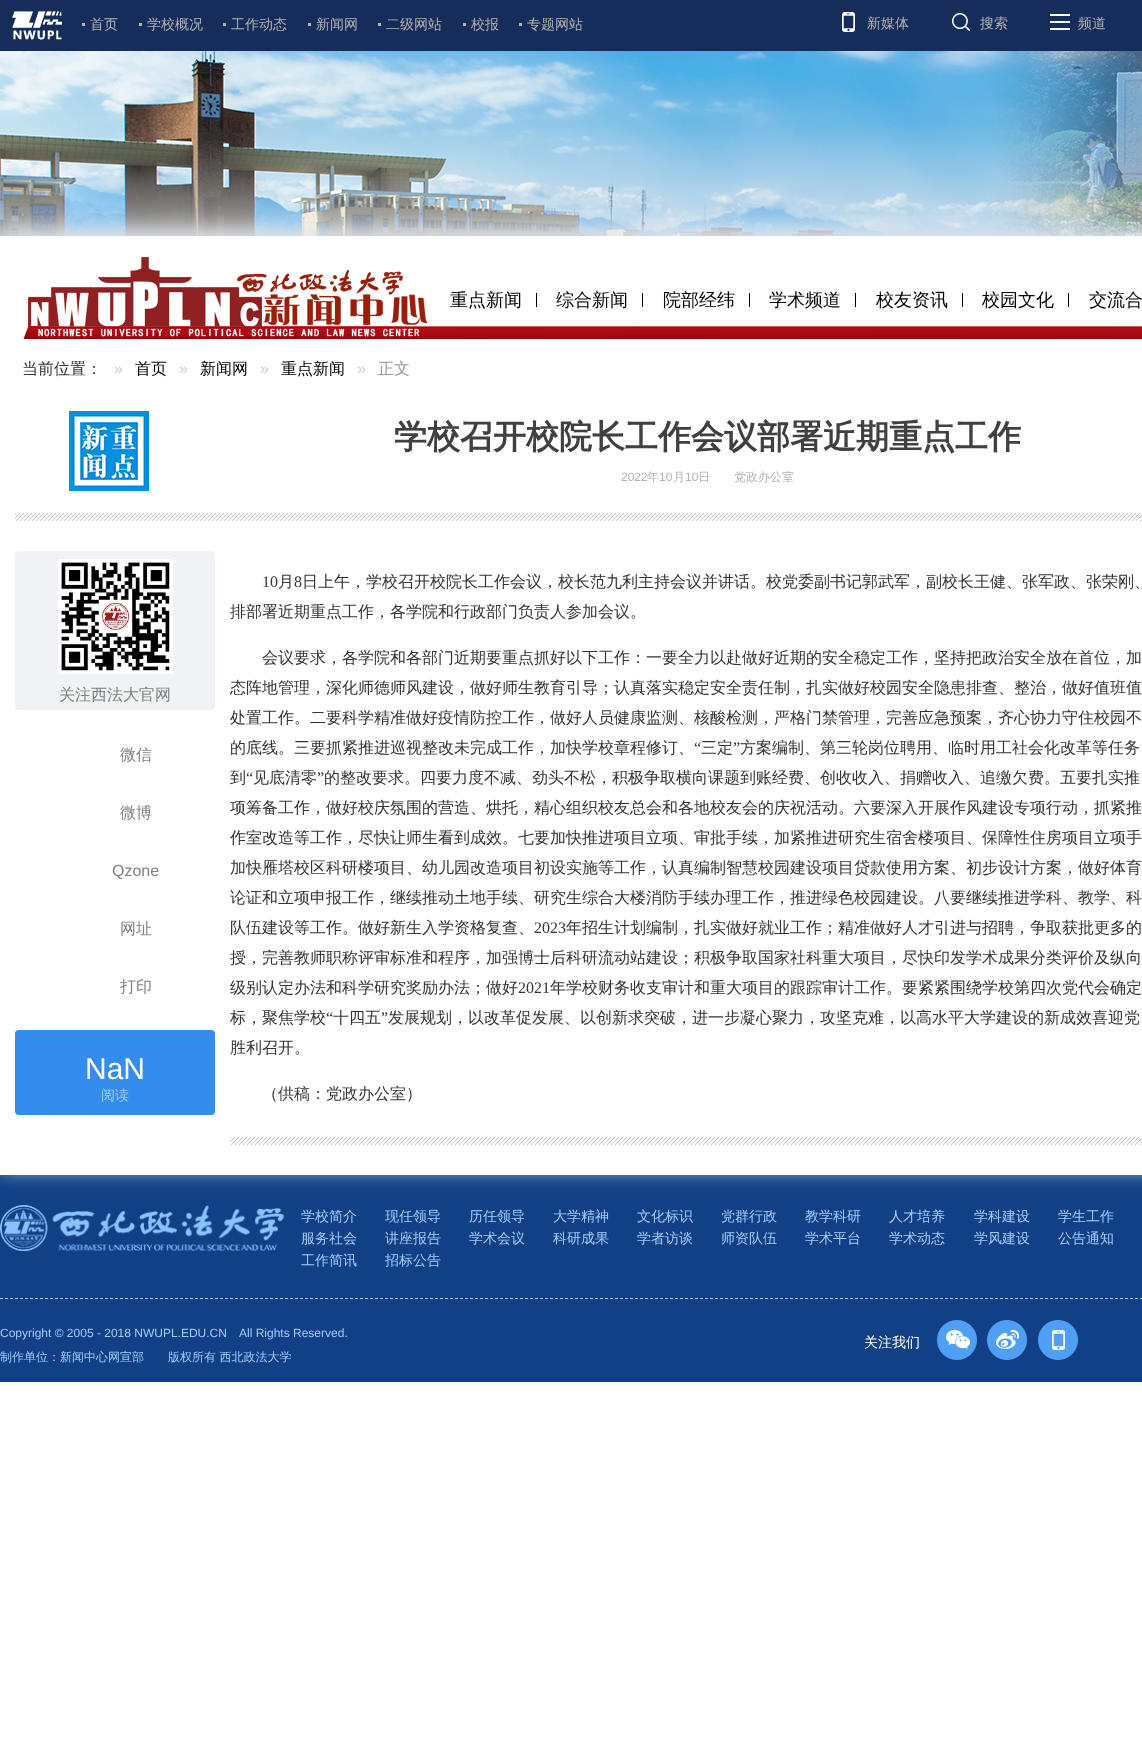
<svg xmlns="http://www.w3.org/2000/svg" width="1142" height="1750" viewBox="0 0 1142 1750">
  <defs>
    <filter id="blur1" x="-50%" y="-200%" width="200%" height="500%"><feGaussianBlur stdDeviation="10"/></filter>
  </defs>
  <rect width="100%" height="100%" fill="#ffffff"/>
  <rect x="0" y="0" width="1142" height="51" fill="#162c5a"/>
  <image x="12" y="11" width="50" height="29" href="img1.png"/>
  <rect x="82" y="23" width="3" height="3" fill="#b3b3b3"/>
  <text x="90" y="29" font-family="WenQuanYi Zen Hei" font-size="14" font-weight="500" fill="#b3b3b3">首页</text>
  <rect x="139" y="23" width="3" height="3" fill="#b3b3b3"/>
  <text x="147" y="29" font-family="WenQuanYi Zen Hei" font-size="14" font-weight="500" fill="#b3b3b3">学校概况</text>
  <rect x="223" y="23" width="3" height="3" fill="#b3b3b3"/>
  <text x="231" y="29" font-family="WenQuanYi Zen Hei" font-size="14" font-weight="500" fill="#b3b3b3">工作动态</text>
  <rect x="308" y="23" width="3" height="3" fill="#b3b3b3"/>
  <text x="316" y="29" font-family="WenQuanYi Zen Hei" font-size="14" font-weight="500" fill="#b3b3b3">新闻网</text>
  <rect x="378" y="23" width="3" height="3" fill="#b3b3b3"/>
  <text x="386" y="29" font-family="WenQuanYi Zen Hei" font-size="14" font-weight="500" fill="#b3b3b3">二级网站</text>
  <rect x="463" y="23" width="3" height="3" fill="#b3b3b3"/>
  <text x="471" y="29" font-family="WenQuanYi Zen Hei" font-size="14" font-weight="500" fill="#b3b3b3">校报</text>
  <rect x="519" y="23" width="3" height="3" fill="#b3b3b3"/>
  <text x="527" y="29" font-family="WenQuanYi Zen Hei" font-size="14" font-weight="500" fill="#b3b3b3">专题网站</text>
  <image x="842" y="12" width="13" height="20" href="img2.png"/>
  <text x="867" y="28" font-family="WenQuanYi Zen Hei" font-size="14" font-weight="500" fill="#b3b3b3">新媒体</text>
  <image x="952" y="13" width="18" height="18" href="img3.png"/>
  <text x="980" y="28" font-family="WenQuanYi Zen Hei" font-size="14" font-weight="500" fill="#b3b3b3">搜索</text>
  <image x="1050" y="14" width="20" height="16" href="img4.png"/>
  <text x="1078" y="28" font-family="WenQuanYi Zen Hei" font-size="14" font-weight="500" fill="#b3b3b3">频道</text>
  <image x="0" y="51" width="1142" height="185" href="img5.png"/>
  <rect x="0" y="1175" width="1142" height="207" fill="#114087"/>
  <rect x="0" y="230" width="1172" height="939" fill="#e0e4e9" filter="url(#blur1)"/>
  <rect x="0" y="236" width="1142" height="939" fill="#ffffff"/>
  <image x="21" y="257" width="1121" height="82" href="img6.png"/>
  <text x="450" y="306" font-family="WenQuanYi Zen Hei" font-size="18" font-weight="500" fill="#000000">重点新闻</text>
  <rect x="536" y="293" width="1" height="14" fill="#000000"/>
  <text x="556" y="306" font-family="WenQuanYi Zen Hei" font-size="18" font-weight="500" fill="#000000">综合新闻</text>
  <rect x="642" y="293" width="1" height="14" fill="#000000"/>
  <text x="663" y="306" font-family="WenQuanYi Zen Hei" font-size="18" font-weight="500" fill="#000000">院部经纬</text>
  <rect x="749" y="293" width="1" height="14" fill="#000000"/>
  <text x="769" y="306" font-family="WenQuanYi Zen Hei" font-size="18" font-weight="500" fill="#000000">学术频道</text>
  <rect x="855" y="293" width="1" height="14" fill="#000000"/>
  <text x="876" y="306" font-family="WenQuanYi Zen Hei" font-size="18" font-weight="500" fill="#000000">校友资讯</text>
  <rect x="962" y="293" width="1" height="14" fill="#000000"/>
  <text x="982" y="306" font-family="WenQuanYi Zen Hei" font-size="18" font-weight="500" fill="#000000">校园文化</text>
  <rect x="1068" y="293" width="1" height="14" fill="#000000"/>
  <text x="1089" y="306" font-family="WenQuanYi Zen Hei" font-size="18" font-weight="500" fill="#000000">交流合</text>
  <text x="22" y="374" font-family="WenQuanYi Zen Hei" font-size="16" font-weight="500" fill="#333333">当前位置：</text>
  <text x="114" y="374" font-family="Liberation Sans" font-size="16" fill="#cccccc">»</text>
  <text x="135" y="374" font-family="WenQuanYi Zen Hei" font-size="16" font-weight="500" fill="#000000">首页</text>
  <text x="179" y="374" font-family="Liberation Sans" font-size="16" fill="#cccccc">»</text>
  <text x="200" y="374" font-family="WenQuanYi Zen Hei" font-size="16" font-weight="500" fill="#000000">新闻网</text>
  <text x="260" y="374" font-family="Liberation Sans" font-size="16" fill="#cccccc">»</text>
  <text x="281" y="374" font-family="WenQuanYi Zen Hei" font-size="16" font-weight="500" fill="#000000">重点新闻</text>
  <text x="357" y="374" font-family="Liberation Sans" font-size="16" fill="#cccccc">»</text>
  <text x="378" y="374" font-family="WenQuanYi Zen Hei" font-size="16" font-weight="500" fill="#999999">正文</text>
  <image x="15" y="513" width="1127" height="8" href="img7.png"/>
  <image x="69" y="411" width="80" height="80" href="img8.png"/>
  <text x="394" y="448" font-family="WenQuanYi Zen Hei" font-size="33" font-weight="bold" fill="#404040">学校召开校院长工作会议部署近期重点工作</text>
  <text x="621" y="481" font-family="Liberation Sans" font-size="12" fill="#b3b3b3">2022</text>
  <text x="647" y="481" font-family="WenQuanYi Zen Hei" font-size="12" font-weight="500" fill="#b3b3b3">年</text>
  <text x="659" y="481" font-family="Liberation Sans" font-size="12" fill="#b3b3b3">10</text>
  <text x="673" y="481" font-family="WenQuanYi Zen Hei" font-size="12" font-weight="500" fill="#b3b3b3">月</text>
  <text x="685" y="481" font-family="Liberation Sans" font-size="12" fill="#b3b3b3">10</text>
  <text x="698" y="481" font-family="WenQuanYi Zen Hei" font-size="12" font-weight="500" fill="#b3b3b3">日</text>
  <text x="734" y="481" font-family="WenQuanYi Zen Hei" font-size="12" font-weight="500" fill="#b3b3b3">党政办公室</text>
  <rect x="15" y="551" width="200" height="159" rx="4" fill="#f0f2f5"/>
  <image x="58" y="559" width="115" height="115" href="img9.png"/>
  <text x="59" y="700" font-family="WenQuanYi Zen Hei" font-size="16" font-weight="500" fill="#808080">关注西法大官网</text>
  <text x="120" y="760" font-family="WenQuanYi Zen Hei" font-size="16" font-weight="500" fill="#808080">微信</text>
  <text x="120" y="818" font-family="WenQuanYi Zen Hei" font-size="16" font-weight="500" fill="#808080">微博</text>
  <text x="112" y="876" font-family="Liberation Sans" font-size="16" fill="#808080">Qzone</text>
  <text x="120" y="934" font-family="WenQuanYi Zen Hei" font-size="16" font-weight="500" fill="#808080">网址</text>
  <text x="120" y="992" font-family="WenQuanYi Zen Hei" font-size="16" font-weight="500" fill="#808080">打印</text>
  <rect x="15" y="1030" width="200" height="85" rx="4" fill="#348cec"/>
  <text x="85" y="1079" font-family="Liberation Sans" font-size="30" fill="#ffffff">NaN</text>
  <text x="101" y="1100" font-family="WenQuanYi Zen Hei" font-size="14" font-weight="500" fill="#a0cdff">阅读</text>
  <image x="230" y="1137" width="912" height="8" href="img10.png"/>
  <text x="262" y="587" font-family="Liberation Serif" font-size="16" fill="#333333">10</text>
  <text x="278" y="587" font-family="WenQuanYi Zen Hei" font-size="16" font-weight="500" fill="#333333">月</text>
  <text x="294" y="587" font-family="Liberation Serif" font-size="16" fill="#333333">8</text>
  <text x="302" y="587" font-family="WenQuanYi Zen Hei" font-size="16" font-weight="500" fill="#333333">日上午，学校召开校院长工作会议，校长范九利主持会议并讲话。校党委副书记郭武军，副校长王健、张军政、张荣刚、</text>
  <text x="230" y="617" font-family="WenQuanYi Zen Hei" font-size="16" font-weight="500" fill="#333333">排部署近期重点工作，各学院和行政部门负责人参加会议。</text>
  <text x="262" y="663" font-family="WenQuanYi Zen Hei" font-size="16" font-weight="500" fill="#333333">会议要求，各学院和各部门近期要重点抓好以下工作：一要全力以赴做好近期的安全稳定工作，坚持把政治安全放在首位，加</text>
  <text x="230" y="693" font-family="WenQuanYi Zen Hei" font-size="16" font-weight="500" fill="#333333">态阵地管理，深化师德师风建设，做好师生教育引导；认真落实稳定安全责任制，扎实做好校园安全隐患排查、整治，做好值班值</text>
  <text x="230" y="723" font-family="WenQuanYi Zen Hei" font-size="16" font-weight="500" fill="#333333">处置工作。二要科学精准做好疫情防控工作，做好人员健康监测、核酸检测，严格门禁管理，完善应急预案，齐心协力守住校园不</text>
  <text x="230" y="753" font-family="WenQuanYi Zen Hei" font-size="16" font-weight="500" fill="#333333">的底线。三要抓紧推进巡视整改未完成工作，加快学校章程修订、</text>
  <text x="694" y="753" font-family="Liberation Serif" font-size="16" fill="#333333">“</text>
  <text x="701" y="753" font-family="WenQuanYi Zen Hei" font-size="16" font-weight="500" fill="#333333">三定</text>
  <text x="733" y="753" font-family="Liberation Serif" font-size="16" fill="#333333">”</text>
  <text x="740" y="753" font-family="WenQuanYi Zen Hei" font-size="16" font-weight="500" fill="#333333">方案编制、第三轮岗位聘用、临时用工社会化改革等任务</text>
  <text x="230" y="783" font-family="WenQuanYi Zen Hei" font-size="16" font-weight="500" fill="#333333">到</text>
  <text x="246" y="783" font-family="Liberation Serif" font-size="16" fill="#333333">“</text>
  <text x="253" y="783" font-family="WenQuanYi Zen Hei" font-size="16" font-weight="500" fill="#333333">见底清零</text>
  <text x="317" y="783" font-family="Liberation Serif" font-size="16" fill="#333333">”</text>
  <text x="324" y="783" font-family="WenQuanYi Zen Hei" font-size="16" font-weight="500" fill="#333333">的整改要求。四要力度不减、劲头不松，积极争取横向课题到账经费、创收收入、捐赠收入、追缴欠费。五要扎实推</text>
  <text x="230" y="813" font-family="WenQuanYi Zen Hei" font-size="16" font-weight="500" fill="#333333">项筹备工作，做好校庆氛围的营造、烘托，精心组织校友总会和各地校友会的庆祝活动。六要深入开展作风建设专项行动，抓紧推</text>
  <text x="230" y="843" font-family="WenQuanYi Zen Hei" font-size="16" font-weight="500" fill="#333333">作室改造等工作，尽快让师生看到成效。七要加快推进项目立项、审批手续，加紧推进研究生宿舍楼项目、保障性住房项目立项手</text>
  <text x="230" y="873" font-family="WenQuanYi Zen Hei" font-size="16" font-weight="500" fill="#333333">加快雁塔校区科研楼项目、幼儿园改造项目初设实施等工作，认真编制智慧校园建设项目贷款使用方案、初步设计方案，做好体育</text>
  <text x="230" y="903" font-family="WenQuanYi Zen Hei" font-size="16" font-weight="500" fill="#333333">论证和立项申报工作，继续推动土地手续、研究生综合大楼消防手续办理工作，推进绿色校园建设。八要继续推进学科、教学、科</text>
  <text x="230" y="933" font-family="WenQuanYi Zen Hei" font-size="16" font-weight="500" fill="#333333">队伍建设等工作。做好新生入学资格复查、</text>
  <text x="534" y="933" font-family="Liberation Serif" font-size="16" fill="#333333">2023</text>
  <text x="566" y="933" font-family="WenQuanYi Zen Hei" font-size="16" font-weight="500" fill="#333333">年招生计划编制，扎实做好就业工作；精准做好人才引进与招聘，争取获批更多的</text>
  <text x="230" y="963" font-family="WenQuanYi Zen Hei" font-size="16" font-weight="500" fill="#333333">授，完善教师职称评审标准和程序，加强博士后科研流动站建设；积极争取国家社科重大项目，尽快印发学术成果分类评价及纵向</text>
  <text x="230" y="993" font-family="WenQuanYi Zen Hei" font-size="16" font-weight="500" fill="#333333">级别认定办法和科学研究奖励办法；做好</text>
  <text x="518" y="993" font-family="Liberation Serif" font-size="16" fill="#333333">2021</text>
  <text x="550" y="993" font-family="WenQuanYi Zen Hei" font-size="16" font-weight="500" fill="#333333">年学校财务收支审计和重大项目的跟踪审计工作。要紧紧围绕学校第四次党代会确定</text>
  <text x="230" y="1023" font-family="WenQuanYi Zen Hei" font-size="16" font-weight="500" fill="#333333">标，聚焦学校</text>
  <text x="326" y="1023" font-family="Liberation Serif" font-size="16" fill="#333333">“</text>
  <text x="333" y="1023" font-family="WenQuanYi Zen Hei" font-size="16" font-weight="500" fill="#333333">十四五</text>
  <text x="381" y="1023" font-family="Liberation Serif" font-size="16" fill="#333333">”</text>
  <text x="388" y="1023" font-family="WenQuanYi Zen Hei" font-size="16" font-weight="500" fill="#333333">发展规划，以改革促发展、以创新求突破，进一步凝心聚力，攻坚克难，以高水平大学建设的新成效喜迎党</text>
  <text x="230" y="1053" font-family="WenQuanYi Zen Hei" font-size="16" font-weight="500" fill="#333333">胜利召开。</text>
  <text x="262" y="1099" font-family="WenQuanYi Zen Hei" font-size="16" font-weight="500" fill="#333333">（供稿：党政办公室）</text>
  <path d="M0 1298.5H1142" fill="none" stroke="#9ccbff" stroke-dasharray="3 2"/>
  <image x="0" y="1205" width="285" height="46" href="img11.png"/>
  <text x="301" y="1221" font-family="WenQuanYi Zen Hei" font-size="14" font-weight="500" fill="#a0cdff">学校简介</text>
  <text x="385" y="1221" font-family="WenQuanYi Zen Hei" font-size="14" font-weight="500" fill="#a0cdff">现任领导</text>
  <text x="469" y="1221" font-family="WenQuanYi Zen Hei" font-size="14" font-weight="500" fill="#a0cdff">历任领导</text>
  <text x="553" y="1221" font-family="WenQuanYi Zen Hei" font-size="14" font-weight="500" fill="#a0cdff">大学精神</text>
  <text x="637" y="1221" font-family="WenQuanYi Zen Hei" font-size="14" font-weight="500" fill="#a0cdff">文化标识</text>
  <text x="721" y="1221" font-family="WenQuanYi Zen Hei" font-size="14" font-weight="500" fill="#a0cdff">党群行政</text>
  <text x="805" y="1221" font-family="WenQuanYi Zen Hei" font-size="14" font-weight="500" fill="#a0cdff">教学科研</text>
  <text x="889" y="1221" font-family="WenQuanYi Zen Hei" font-size="14" font-weight="500" fill="#a0cdff">人才培养</text>
  <text x="974" y="1221" font-family="WenQuanYi Zen Hei" font-size="14" font-weight="500" fill="#a0cdff">学科建设</text>
  <text x="1058" y="1221" font-family="WenQuanYi Zen Hei" font-size="14" font-weight="500" fill="#a0cdff">学生工作</text>
  <text x="301" y="1243" font-family="WenQuanYi Zen Hei" font-size="14" font-weight="500" fill="#a0cdff">服务社会</text>
  <text x="385" y="1243" font-family="WenQuanYi Zen Hei" font-size="14" font-weight="500" fill="#a0cdff">讲座报告</text>
  <text x="469" y="1243" font-family="WenQuanYi Zen Hei" font-size="14" font-weight="500" fill="#a0cdff">学术会议</text>
  <text x="553" y="1243" font-family="WenQuanYi Zen Hei" font-size="14" font-weight="500" fill="#a0cdff">科研成果</text>
  <text x="637" y="1243" font-family="WenQuanYi Zen Hei" font-size="14" font-weight="500" fill="#a0cdff">学者访谈</text>
  <text x="721" y="1243" font-family="WenQuanYi Zen Hei" font-size="14" font-weight="500" fill="#a0cdff">师资队伍</text>
  <text x="805" y="1243" font-family="WenQuanYi Zen Hei" font-size="14" font-weight="500" fill="#a0cdff">学术平台</text>
  <text x="889" y="1243" font-family="WenQuanYi Zen Hei" font-size="14" font-weight="500" fill="#a0cdff">学术动态</text>
  <text x="974" y="1243" font-family="WenQuanYi Zen Hei" font-size="14" font-weight="500" fill="#a0cdff">学风建设</text>
  <text x="1058" y="1243" font-family="WenQuanYi Zen Hei" font-size="14" font-weight="500" fill="#a0cdff">公告通知</text>
  <text x="301" y="1265" font-family="WenQuanYi Zen Hei" font-size="14" font-weight="500" fill="#a0cdff">工作简讯</text>
  <text x="385" y="1265" font-family="WenQuanYi Zen Hei" font-size="14" font-weight="500" fill="#a0cdff">招标公告</text>
  <text x="0" y="1337" font-family="Liberation Sans" font-size="12" fill="#a0cdff">Copyright © 2005 - 2018 NWUPL.EDU.CN</text>
  <text x="239" y="1337" font-family="Liberation Sans" font-size="12" fill="#a0cdff">All Rights Reserved.</text>
  <text x="0" y="1361" font-family="WenQuanYi Zen Hei" font-size="12" font-weight="500" fill="#a0cdff">制作单位：新闻中心网宣部　　版权所有 西北政法大学</text>
  <text x="864" y="1347" font-family="WenQuanYi Zen Hei" font-size="14" font-weight="500" fill="#ffffff">关注我们</text>
  <image x="937" y="1320" width="40" height="40" href="img12.png"/>
  <image x="987" y="1320" width="40" height="40" href="img13.png"/>
  <image x="1038" y="1320" width="40" height="40" href="img14.png"/>
</svg>
